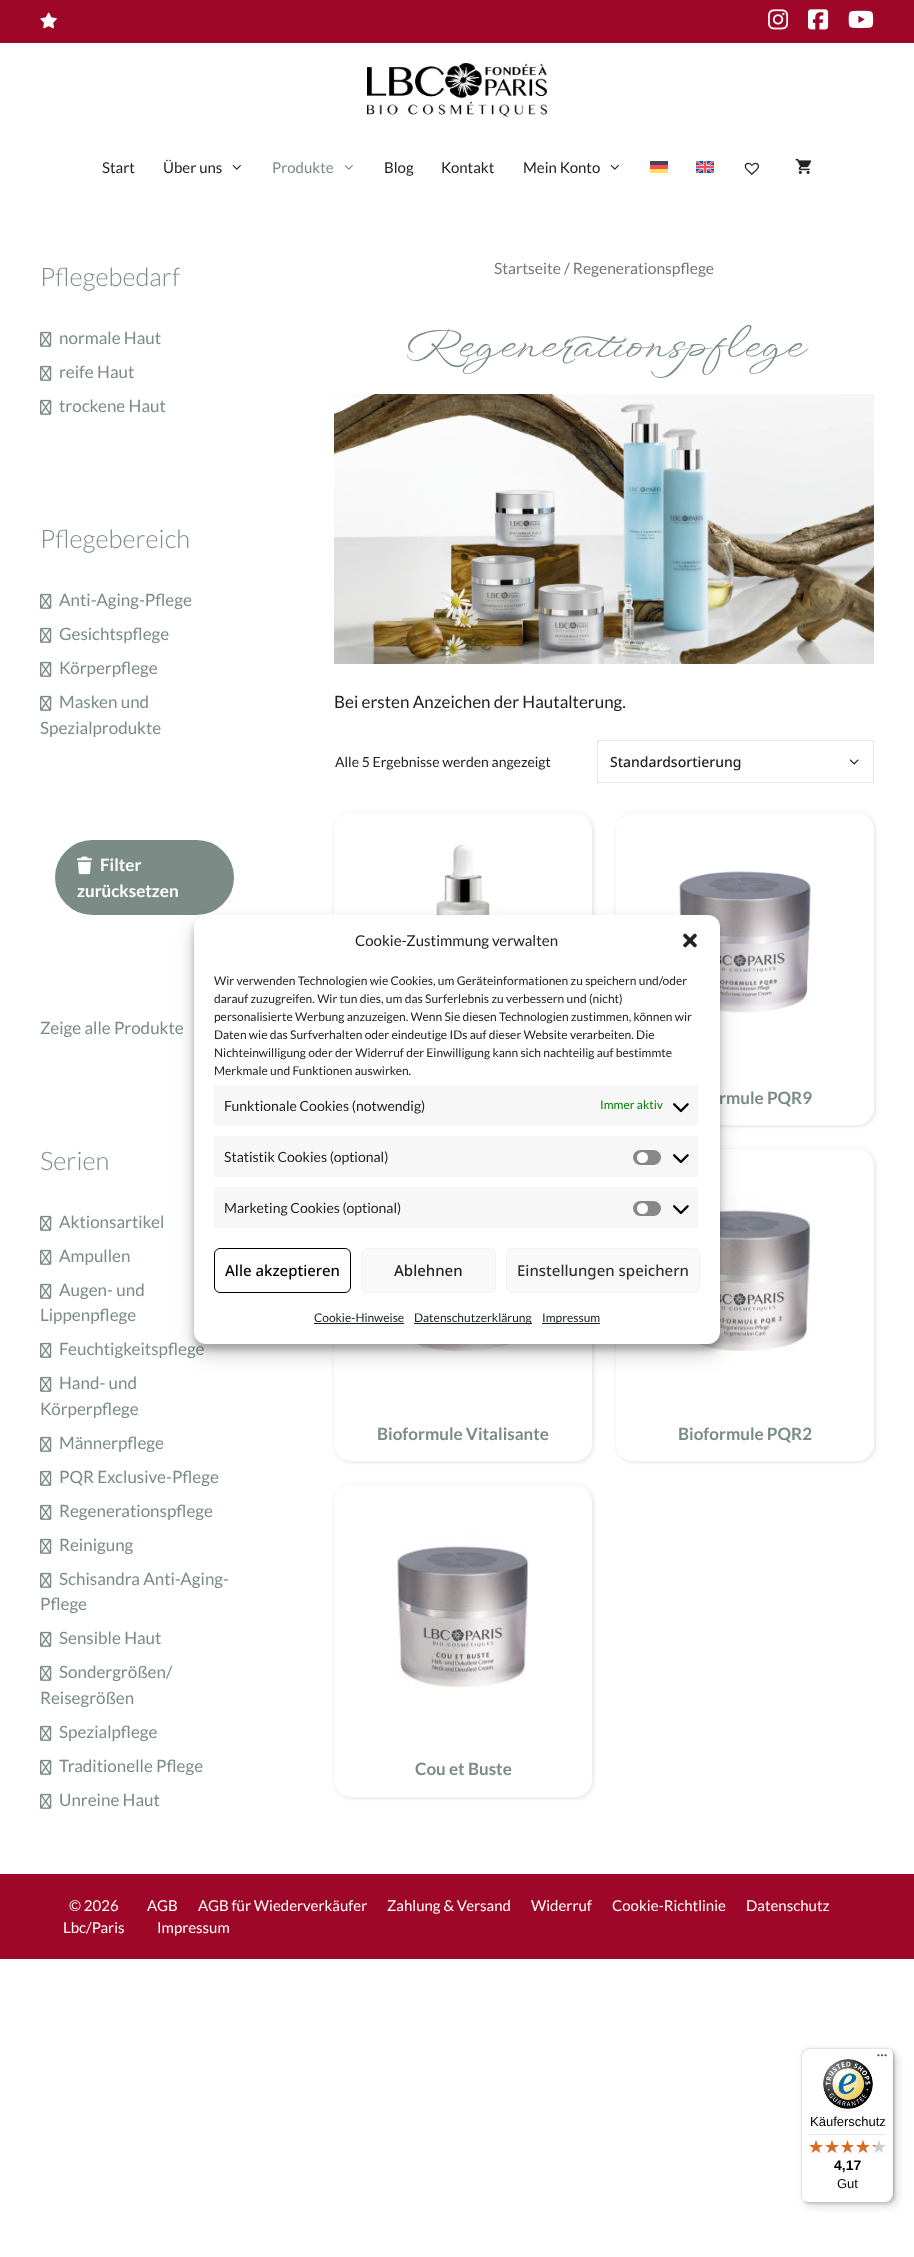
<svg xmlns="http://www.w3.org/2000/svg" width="914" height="2257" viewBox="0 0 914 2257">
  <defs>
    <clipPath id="clip1"><path d="M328 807H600V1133H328ZM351 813H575C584.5 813 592 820.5 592 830V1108C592 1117.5 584.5 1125 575 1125H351C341.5 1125 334 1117.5 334 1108V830C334 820.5 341.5 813 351 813Z" clip-rule="evenodd"/></clipPath>
    <filter id="blur1" x="-50%" y="-200%" width="200%" height="500%"><feGaussianBlur stdDeviation="2"/></filter>
    <clipPath id="clip2"><path d="M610 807H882V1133H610ZM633 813H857C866.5 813 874 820.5 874 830V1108C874 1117.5 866.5 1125 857 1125H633C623.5 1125 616 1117.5 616 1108V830C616 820.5 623.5 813 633 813Z" clip-rule="evenodd"/></clipPath>
    <clipPath id="clip3"><path d="M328 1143H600V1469H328ZM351 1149H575C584.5 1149 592 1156.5 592 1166V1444C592 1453.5 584.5 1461 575 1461H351C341.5 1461 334 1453.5 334 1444V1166C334 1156.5 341.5 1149 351 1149Z" clip-rule="evenodd"/></clipPath>
    <clipPath id="clip4"><path d="M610 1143H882V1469H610ZM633 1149H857C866.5 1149 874 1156.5 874 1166V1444C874 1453.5 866.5 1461 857 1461H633C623.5 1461 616 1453.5 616 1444V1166C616 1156.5 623.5 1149 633 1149Z" clip-rule="evenodd"/></clipPath>
    <clipPath id="clip5"><path d="M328 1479H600V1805H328ZM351 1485H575C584.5 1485 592 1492.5 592 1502V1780C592 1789.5 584.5 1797 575 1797H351C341.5 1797 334 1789.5 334 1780V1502C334 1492.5 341.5 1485 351 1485Z" clip-rule="evenodd"/></clipPath>
    <filter id="blur2" x="-50%" y="-200%" width="200%" height="500%"><feGaussianBlur stdDeviation="3"/></filter>
    <filter id="blur3" x="-50%" y="-200%" width="200%" height="500%"><feGaussianBlur stdDeviation="10"/></filter>
    <filter id="blur4" x="-50%" y="-200%" width="200%" height="500%"><feGaussianBlur stdDeviation="4"/></filter>
    <filter id="blur5" x="-50%" y="-200%" width="200%" height="500%"><feGaussianBlur stdDeviation="1"/></filter>
  </defs>
  <rect width="100%" height="100%" fill="#ffffff"/>
  <rect x="0" y="0" width="914" height="43" fill="#9e0728"/>
  <image x="40" y="12" width="17" height="17" href="img1.png"/>
  <image x="768" y="9" width="21" height="21" href="img2.png"/>
  <image x="808" y="9" width="21" height="21" href="img3.png"/>
  <image x="848" y="10" width="26" height="18" href="img4.png"/>
  <image x="367" y="63" width="180" height="54" href="img5.png"/>
  <text x="102" y="173" font-family="Lato" font-size="15" fill="#222222">Start</text>
  <text x="163" y="173" font-family="Lato" font-size="15" fill="#222222">Über uns</text>
  <image x="232" y="165" width="9" height="5" href="img6.png"/>
  <text x="272" y="173" font-family="Lato" font-size="15" fill="#7b8c86">Produkte</text>
  <image x="344" y="165" width="9" height="5" href="img7.png"/>
  <text x="384" y="173" font-family="Lato" font-size="15" fill="#222222">Blog</text>
  <text x="441" y="173" font-family="Lato" font-size="15" fill="#222222">Kontakt</text>
  <text x="523" y="173" font-family="Lato" font-size="15" fill="#222222">Mein Konto</text>
  <image x="610" y="165" width="9" height="5" href="img6.png"/>
  <rect x="650" y="165" width="18" height="4" fill="#ff4b55"/>
  <rect x="650" y="169" width="18" height="4" fill="#ffe15a"/>
  <rect x="650" y="161" width="18" height="4" fill="#464655"/>
  <image x="696" y="161" width="18" height="12" href="img8.png"/>
  <image x="744" y="162" width="15" height="13" href="img9.png"/>
  <image x="795" y="158" width="17" height="16" href="img10.png"/>
  <text x="40" y="286" font-family="Lato" font-size="25.5" font-weight="300" fill="#7b8c86">Pflegebedarf</text>
  <image x="40" y="331" width="12" height="16" href="img11.png"/>
  <text x="59" y="344" font-family="Lato" font-size="17" fill="#7b8c86">normale Haut</text>
  <image x="40" y="365" width="12" height="16" href="img11.png"/>
  <text x="59" y="378" font-family="Lato" font-size="17" fill="#7b8c86">reife Haut</text>
  <image x="40" y="399" width="12" height="16" href="img11.png"/>
  <text x="59" y="412" font-family="Lato" font-size="17" fill="#7b8c86">trockene Haut</text>
  <text x="40" y="548" font-family="Lato" font-size="25.5" font-weight="300" fill="#7b8c86">Pflegebereich</text>
  <image x="40" y="593" width="12" height="16" href="img11.png"/>
  <text x="59" y="606" font-family="Lato" font-size="17" fill="#7b8c86">Anti-Aging-Pflege</text>
  <image x="40" y="627" width="12" height="16" href="img11.png"/>
  <text x="59" y="640" font-family="Lato" font-size="17" fill="#7b8c86">Gesichtspflege</text>
  <image x="40" y="661" width="12" height="16" href="img11.png"/>
  <text x="59" y="674" font-family="Lato" font-size="17" fill="#7b8c86">Körperpflege</text>
  <image x="40" y="695" width="12" height="16" href="img11.png"/>
  <text x="59" y="708" font-family="Lato" font-size="17" fill="#7b8c86">Masken und</text>
  <text x="40" y="734" font-family="Lato" font-size="17" fill="#7b8c86">Spezialprodukte</text>
  <rect x="56" y="841" width="177" height="73" rx="36.5" fill="#7b8c86" stroke="#7b8c86" stroke-width="2"/>
  <image x="77" y="856" width="15" height="19" href="img12.png"/>
  <text x="100" y="871" font-family="Lato" font-size="17" font-weight="bold" fill="#ffffff">Filter</text>
  <text x="77" y="897" font-family="Lato" font-size="17" font-weight="bold" fill="#ffffff">zurücksetzen</text>
  <text x="40" y="1034" font-family="Lato" font-size="17" fill="#7b8c86">Zeige alle Produkte</text>
  <text x="40" y="1170" font-family="Lato" font-size="25.5" font-weight="300" fill="#7b8c86">Serien</text>
  <image x="40" y="1215" width="12" height="16" href="img11.png"/>
  <text x="59" y="1228" font-family="Lato" font-size="17" fill="#7b8c86">Aktionsartikel</text>
  <image x="40" y="1249" width="12" height="16" href="img11.png"/>
  <text x="59" y="1262" font-family="Lato" font-size="17" fill="#7b8c86">Ampullen</text>
  <image x="40" y="1283" width="12" height="16" href="img11.png"/>
  <text x="59" y="1296" font-family="Lato" font-size="17" fill="#7b8c86">Augen- und</text>
  <text x="40" y="1321" font-family="Lato" font-size="17" fill="#7b8c86">Lippenpflege</text>
  <image x="40" y="1342" width="12" height="16" href="img11.png"/>
  <text x="59" y="1355" font-family="Lato" font-size="17" fill="#7b8c86">Feuchtigkeitspflege</text>
  <image x="40" y="1376" width="12" height="16" href="img11.png"/>
  <text x="59" y="1389" font-family="Lato" font-size="17" fill="#7b8c86">Hand- und</text>
  <text x="40" y="1415" font-family="Lato" font-size="17" fill="#7b8c86">Körperpflege</text>
  <image x="40" y="1436" width="12" height="16" href="img11.png"/>
  <text x="59" y="1449" font-family="Lato" font-size="17" fill="#7b8c86">Männerpflege</text>
  <image x="40" y="1470" width="12" height="16" href="img11.png"/>
  <text x="59" y="1483" font-family="Lato" font-size="17" fill="#7b8c86">PQR Exclusive-Pflege</text>
  <image x="40" y="1504" width="12" height="16" href="img11.png"/>
  <text x="59" y="1517" font-family="Lato" font-size="17" fill="#7b8c86">Regenerationspflege</text>
  <image x="40" y="1538" width="12" height="16" href="img11.png"/>
  <text x="59" y="1551" font-family="Lato" font-size="17" fill="#7b8c86">Reinigung</text>
  <image x="40" y="1572" width="12" height="16" href="img11.png"/>
  <text x="59" y="1585" font-family="Lato" font-size="17" fill="#7b8c86">Schisandra Anti-Aging-</text>
  <text x="40" y="1610" font-family="Lato" font-size="17" fill="#7b8c86">Pflege</text>
  <image x="40" y="1631" width="12" height="16" href="img11.png"/>
  <text x="59" y="1644" font-family="Lato" font-size="17" fill="#7b8c86">Sensible Haut</text>
  <image x="40" y="1665" width="12" height="16" href="img11.png"/>
  <text x="59" y="1678" font-family="Lato" font-size="17" fill="#7b8c86">Sondergrößen/</text>
  <text x="40" y="1704" font-family="Lato" font-size="17" fill="#7b8c86">Reisegrößen</text>
  <image x="40" y="1725" width="12" height="16" href="img11.png"/>
  <text x="59" y="1738" font-family="Lato" font-size="17" fill="#7b8c86">Spezialpflege</text>
  <image x="40" y="1759" width="12" height="16" href="img11.png"/>
  <text x="59" y="1772" font-family="Lato" font-size="17" fill="#7b8c86">Traditionelle Pflege</text>
  <image x="40" y="1793" width="12" height="16" href="img11.png"/>
  <text x="59" y="1806" font-family="Lato" font-size="17" fill="#7b8c86">Unreine Haut</text>
  <text x="494" y="274" font-family="Lato" font-size="15.6" fill="#767676">Startseite / Regenerationspflege</text>
  <text x="408" y="356" font-family="WindSong" font-size="42.5" fill="#7b8c86">Regenerationspflege</text>
  <image x="334" y="394" width="540" height="270" href="img13.png"/>
  <text x="334" y="708" font-family="Lato" font-size="17" fill="#222222">Bei ersten Anzeichen der Hautalterung.</text>
  <text x="335" y="767" font-family="Lato" font-size="14" fill="#222222">Alle 5 Ergebnisse werden angezeigt</text>
  <rect x="597.5" y="740.5" width="276" height="42" fill="none" stroke="#e6e6e6"/>
  <text x="610" y="767" font-family="Noto Sans" font-size="14" font-weight="500" fill="#222222">Standardsortierung</text>
  <image x="849" y="759" width="10" height="6" href="img14.png"/>
  <g clip-path="url(#clip1)">
    <rect x="335" y="814" width="258" height="312" rx="17" fill="#646464" fill-opacity="0.2" filter="url(#blur1)"/>
  </g>
  <image x="435" y="826" width="157" height="89" href="img15.png"/>
  <g clip-path="url(#clip2)">
    <rect x="617" y="814" width="258" height="312" rx="17" fill="#646464" fill-opacity="0.2" filter="url(#blur1)"/>
  </g>
  <image x="679" y="871" width="132" height="142" href="img16.png"/>
  <text x="719" y="1104" font-family="Lato" font-size="17" font-weight="bold" fill="#7b8c86">rmule PQR9</text>
  <g clip-path="url(#clip3)">
    <rect x="335" y="1150" width="258" height="312" rx="17" fill="#646464" fill-opacity="0.2" filter="url(#blur1)"/>
  </g>
  <image x="391" y="1344" width="201" height="8" href="img17.png"/>
  <text x="377" y="1440" font-family="Lato" font-size="17" font-weight="bold" fill="#7b8c86">Bioformule Vitalisante</text>
  <g clip-path="url(#clip4)">
    <rect x="617" y="1150" width="258" height="312" rx="17" fill="#646464" fill-opacity="0.2" filter="url(#blur1)"/>
  </g>
  <image x="679" y="1162" width="195" height="190" href="img18.png"/>
  <text x="678" y="1440" font-family="Lato" font-size="17" font-weight="bold" fill="#7b8c86">Bioformule PQR2</text>
  <g clip-path="url(#clip5)">
    <rect x="335" y="1486" width="258" height="312" rx="17" fill="#646464" fill-opacity="0.2" filter="url(#blur1)"/>
  </g>
  <image x="397" y="1498" width="195" height="190" href="img19.png"/>
  <text x="415" y="1775" font-family="Lato" font-size="17" font-weight="bold" fill="#7b8c86">Cou et Buste</text>
  <rect x="194" y="921" width="526" height="429" rx="12" fill="#000000" fill-opacity="0.23" filter="url(#blur2)"/>
  <rect x="194" y="925" width="526" height="429" rx="12" fill="#000000" fill-opacity="0.19" filter="url(#blur3)"/>
  <rect x="194" y="915" width="526" height="429" rx="12" fill="#ffffff"/>
  <text x="355" y="946" font-family="Lato" font-size="15" fill="#222222">Cookie-Zustimmung verwalten</text>
  <image x="683" y="933" width="14" height="15" href="img20.png"/>
  <text x="214" y="985" font-family="Lato" font-size="12" fill="#222222">Wir verwenden Technologien wie Cookies, um Geräteinformationen zu speichern und/oder</text>
  <text x="214" y="1003" font-family="Lato" font-size="12" fill="#222222">darauf zuzugreifen. Wir tun dies, um das Surferlebnis zu verbessern und (nicht)</text>
  <text x="214" y="1021" font-family="Lato" font-size="12" fill="#222222">personalisierte Werbung anzuzeigen. Wenn Sie diesen Technologien zustimmen, können wir</text>
  <text x="214" y="1039" font-family="Lato" font-size="12" fill="#222222">Daten wie das Surfverhalten oder eindeutige IDs auf dieser Website verarbeiten. Die</text>
  <text x="214" y="1057" font-family="Lato" font-size="12" fill="#222222">Nichteinwilligung oder der Widerruf der Einwilligung kann sich nachteilig auf bestimmte</text>
  <text x="214" y="1075" font-family="Lato" font-size="12" fill="#222222">Merkmale und Funktionen auswirken.</text>
  <rect x="214" y="1085" width="484" height="41" fill="#f7f7f7"/>
  <text x="224" y="1111" font-family="Lato" font-size="14" fill="#222222">Funktionale Cookies (notwendig)</text>
  <text x="600" y="1109" font-family="Lato" font-size="12" fill="#008000">Immer aktiv</text>
  <image x="673" y="1103" width="16" height="10" href="img21.png"/>
  <rect x="214" y="1136" width="484" height="41" fill="#f7f7f7"/>
  <text x="224" y="1162" font-family="Lato" font-size="14" fill="#222222">Statistik Cookies (optional)</text>
  <rect x="633" y="1150" width="28" height="15" rx="7.5" fill="#888888"/>
  <circle cx="642.5" cy="1157.5" r="5.5" fill="#ffffff"/>
  <image x="673" y="1154" width="16" height="10" href="img21.png"/>
  <rect x="214" y="1187" width="484" height="41" fill="#f7f7f7"/>
  <text x="224" y="1213" font-family="Lato" font-size="14" fill="#222222">Marketing Cookies (optional)</text>
  <rect x="633" y="1201" width="28" height="15" rx="7.5" fill="#888888"/>
  <circle cx="642.5" cy="1208.5" r="5.5" fill="#ffffff"/>
  <image x="673" y="1205" width="16" height="10" href="img21.png"/>
  <rect x="214.5" y="1248.5" width="136" height="44" rx="5.5" fill="none" stroke="#000000"/>
  <text x="225" y="1276" font-family="Noto Sans" font-size="15" font-weight="500" fill="#000000">Alle akzeptieren</text>
  <rect x="361.5" y="1248.5" width="134" height="44" rx="5.5" fill="#f9f9f9" stroke="#f2f2f2"/>
  <text x="394" y="1276" font-family="Noto Sans" font-size="15" font-weight="500" fill="#222222">Ablehnen</text>
  <rect x="506.5" y="1248.5" width="193" height="44" rx="5.5" fill="#f9f9f9" stroke="#f2f2f2"/>
  <text x="517" y="1276" font-family="Noto Sans" font-size="15" font-weight="500" fill="#333333">Einstellungen speichern</text>
  <text x="314" y="1322" font-family="Lato" font-size="12" fill="#191e23">Cookie-Hinweise</text>
  <rect x="314" y="1323" width="90" height="1" fill="#191e23"/>
  <rect x="414" y="1323" width="118" height="1" fill="#191e23"/>
  <text x="414" y="1322" font-family="Lato" font-size="12" fill="#191e23">Datenschutzerklärung</text>
  <rect x="542" y="1323" width="58" height="1" fill="#191e23"/>
  <text x="542" y="1322" font-family="Lato" font-size="12" fill="#191e23">Impressum</text>
  <rect x="0" y="1874" width="914" height="85" fill="#9e0728"/>
  <text x="69" y="1911" font-family="Lato" font-size="15" fill="#ffffff">© 2026</text>
  <text x="63" y="1933" font-family="Lato" font-size="15" fill="#ffffff">Lbc/Paris</text>
  <text x="147" y="1911" font-family="Lato" font-size="15" fill="#ffffff">AGB</text>
  <text x="198" y="1911" font-family="Lato" font-size="15" fill="#ffffff">AGB für Wiederverkäufer</text>
  <text x="387" y="1911" font-family="Lato" font-size="15" fill="#ffffff">Zahlung &amp; Versand</text>
  <text x="531" y="1911" font-family="Lato" font-size="15" fill="#ffffff">Widerruf</text>
  <text x="612" y="1911" font-family="Lato" font-size="15" fill="#ffffff">Cookie-Richtlinie</text>
  <text x="746" y="1911" font-family="Lato" font-size="15" fill="#ffffff">Datenschutz</text>
  <text x="157" y="1933" font-family="Lato" font-size="15" fill="#ffffff">Impressum</text>
  <rect x="804" y="2051" width="93" height="155" rx="8" fill="#000000" fill-opacity="0.15" filter="url(#blur4)"/>
  <rect x="802" y="2049" width="93" height="155" rx="8" fill="#000000" fill-opacity="0.15" filter="url(#blur5)"/>
  <rect x="801" y="2048" width="93" height="155" rx="8" fill="#ffffff"/>
  <path d="M810 2049H887C889 2049 891 2050 893 2052C891 2050 889 2048 886 2048H809C805 2048 801 2052 801 2056V2195C801 2198 803 2200 805 2202C803 2200 802 2198 802 2196V2057C802 2053 806 2049 810 2049Z" fill="#e5e5e5"/>
  <path d="M802 2199C804 2201 806 2203 809 2203H886C890 2203 894 2199 894 2195V2056C894 2053 892 2051 890 2049C892 2051 893 2053 893 2055V2194C893 2198 889 2202 885 2202H808C806 2202 804 2201 802 2199Z" fill="#cccccc"/>
  <path d="M803 2200C804 2202 807 2203 809 2203H886C890 2203 894 2199 894 2195V2056C894 2054 893 2051 891 2050C892 2051 893 2053 893 2055V2194C893 2199 890 2202 885 2202H808C806 2202 804 2201 803 2200Z" fill="#323232" fill-opacity="0.2"/>
  <image x="877" y="2054" width="10" height="3" href="img22.png"/>
  <path d="M803 2200C804 2202 807 2203 809 2203H886C890 2203 894 2199 894 2195V2194C894 2199 890 2202 886 2202H808C806 2202 804 2201 803 2200Z" fill="#ffffff" fill-opacity="0.3"/>
  <image x="823" y="2059" width="50" height="50" href="img23.png"/>
  <text x="810" y="2126" font-family="Liberation Sans" font-size="13" fill="#000000">Käuferschutz</text>
  <rect x="809" y="2134" width="77" height="1" fill="#e5e5e5"/>
  <image x="809" y="2140" width="14" height="13" href="img24.png"/>
  <image x="825" y="2140" width="14" height="13" href="img24.png"/>
  <image x="841" y="2140" width="13" height="13" href="img25.png"/>
  <image x="856" y="2140" width="14" height="13" href="img24.png"/>
  <image x="872" y="2140" width="14" height="13" href="img24.png"/>
  <image x="809" y="2140" width="14" height="13" href="img26.png"/>
  <image x="825" y="2140" width="14" height="13" href="img26.png"/>
  <image x="841" y="2140" width="13" height="13" href="img27.png"/>
  <image x="856" y="2140" width="14" height="13" href="img26.png"/>
  <image x="872" y="2145" width="3" height="8" href="img28.png"/>
  <text x="834" y="2170" font-family="Liberation Sans" font-size="14" font-weight="bold" fill="#000000">4,17</text>
  <text x="837" y="2188" font-family="Liberation Sans" font-size="13" fill="#000000">Gut</text>
</svg>
